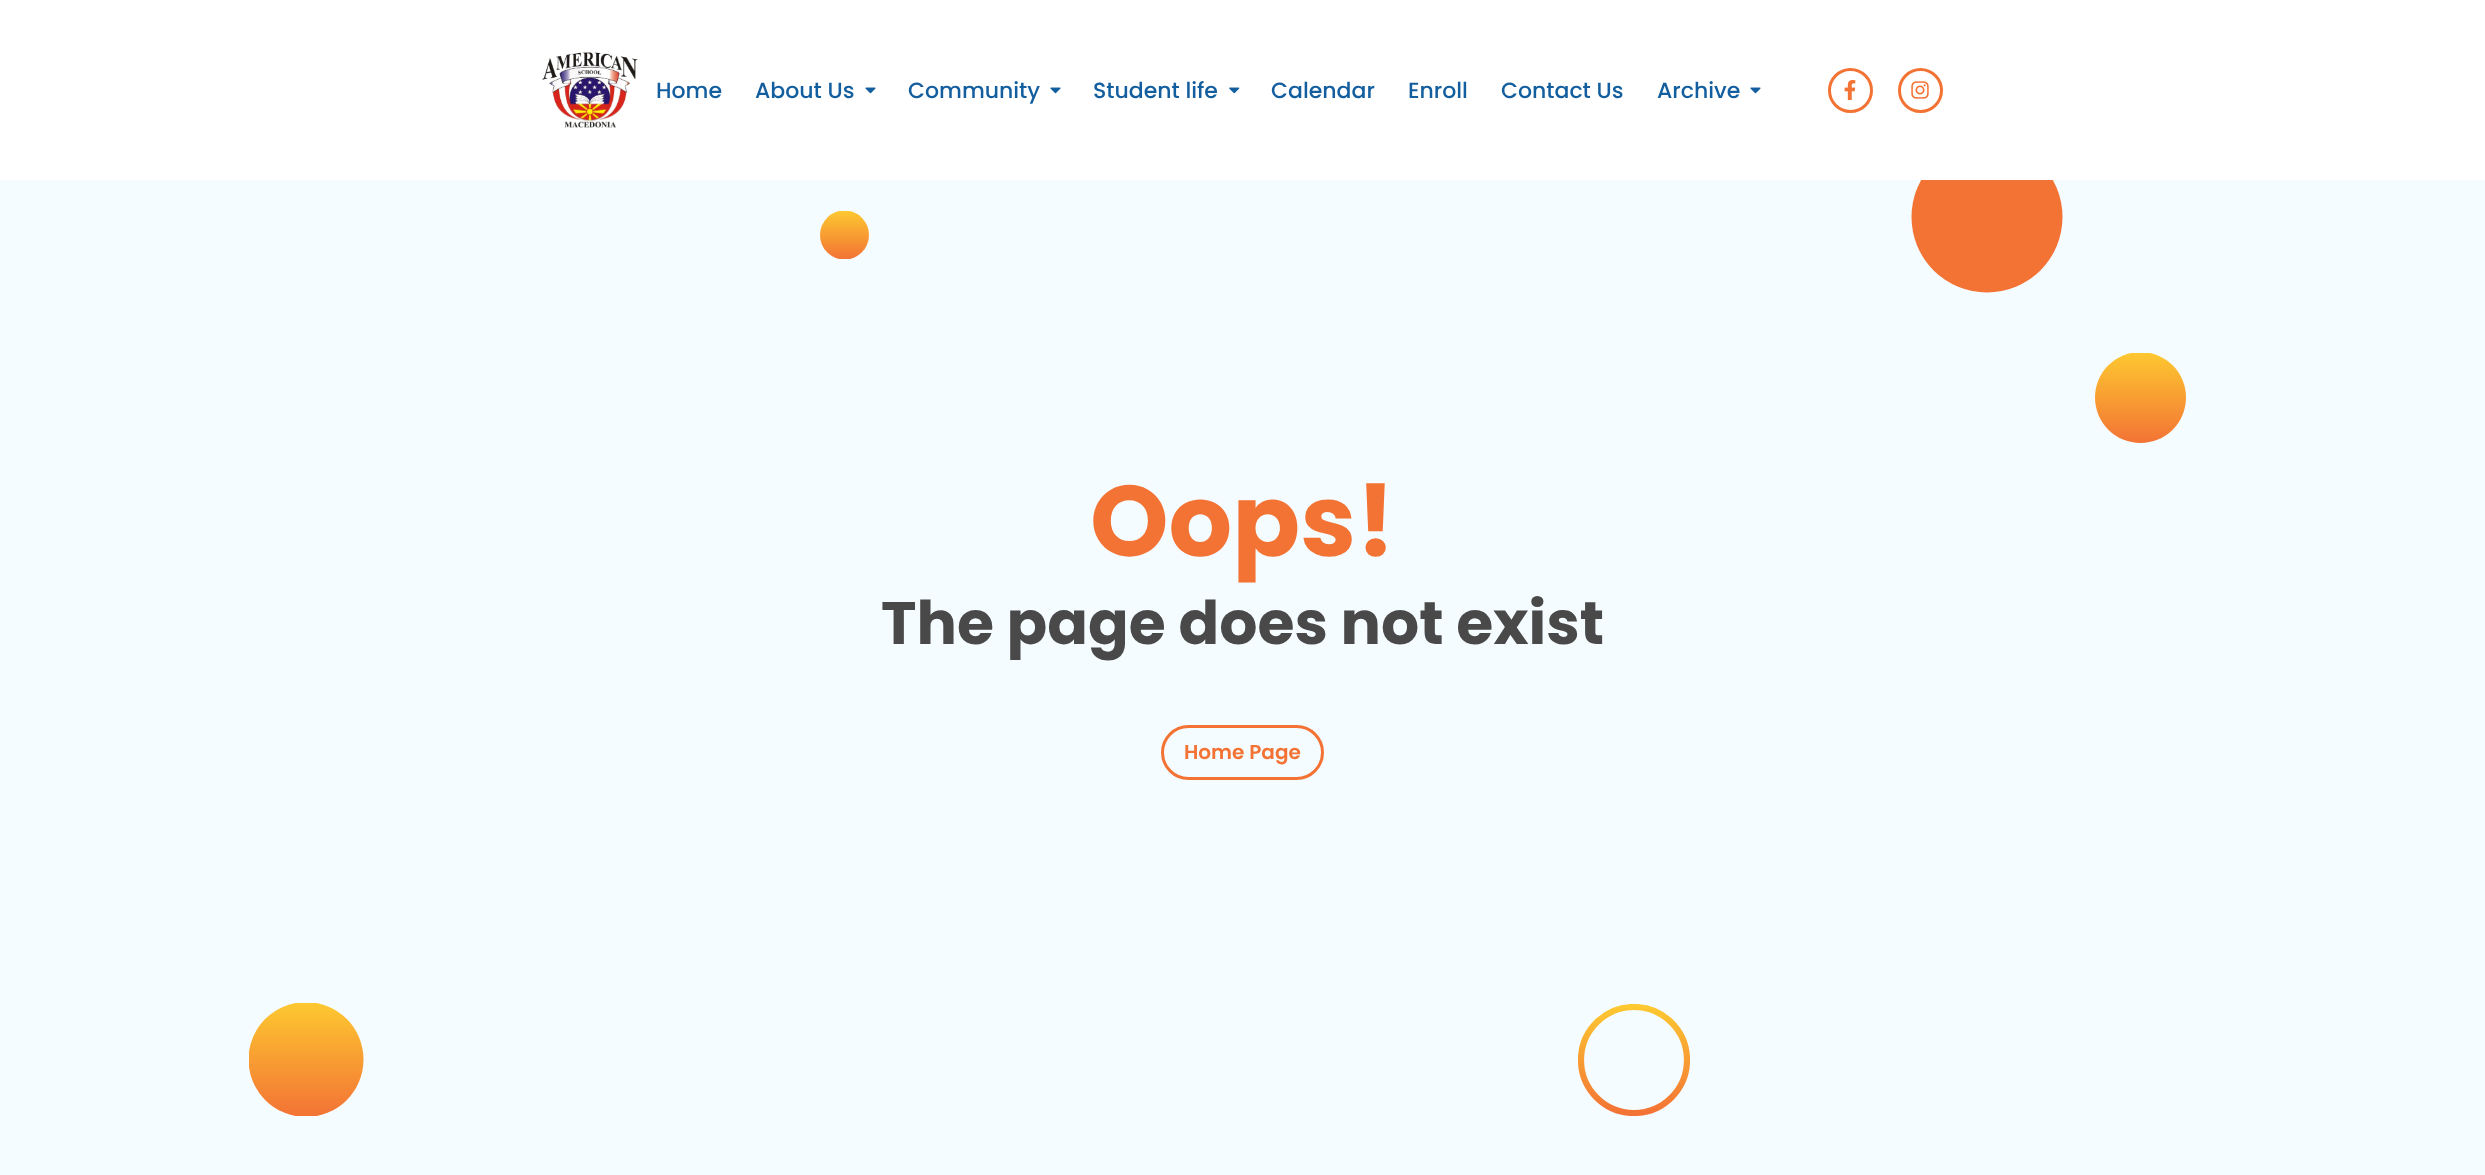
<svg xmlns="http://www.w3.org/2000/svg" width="2485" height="1175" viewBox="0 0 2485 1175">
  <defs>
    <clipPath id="clip1"><rect x="820" y="211" width="49" height="48"/></clipPath>
    <linearGradient id="g1" gradientUnits="userSpaceOnUse" x1="844" y1="211" x2="844" y2="259"><stop offset="0" stop-color="#fdc830"/><stop offset="1" stop-color="#f37335"/></linearGradient>
    <clipPath id="clip2"><rect x="2095" y="353" width="91" height="90"/></clipPath>
    <linearGradient id="g2" gradientUnits="userSpaceOnUse" x1="2141" y1="353" x2="2141" y2="443"><stop offset="0" stop-color="#fdc830"/><stop offset="1" stop-color="#f37335"/></linearGradient>
    <clipPath id="clip3"><rect x="249" y="1003" width="115" height="113"/></clipPath>
    <linearGradient id="g3" gradientUnits="userSpaceOnUse" x1="306" y1="1003" x2="306" y2="1116"><stop offset="0" stop-color="#fdc830"/><stop offset="1" stop-color="#f37335"/></linearGradient>
    <clipPath id="clip4"><rect x="1578" y="1004" width="112" height="112"/></clipPath>
    <linearGradient id="g4" gradientUnits="userSpaceOnUse" x1="1634" y1="1007" x2="1634" y2="1113"><stop offset="0" stop-color="#fdc830"/><stop offset="1" stop-color="#f37335"/></linearGradient>
  </defs>
  <rect width="100%" height="100%" fill="#f5fcff"/>
  <circle cx="1987" cy="217" r="75.5" fill="#f37335"/>
  <rect x="0" y="0" width="2485" height="180" fill="#ffffff"/>
  <image x="542" y="52" width="96" height="76" href="img1.png"/>
  <text x="656" y="98" font-family="Poppins" font-size="22" font-weight="500" fill="#135e9e">Home</text>
  <text x="755" y="98" font-family="Poppins" font-size="22" font-weight="500" fill="#135e9e">About Us</text>
  <image x="865" y="87" width="11" height="7" href="img2.png"/>
  <text x="908" y="98" font-family="Poppins" font-size="22" font-weight="500" fill="#135e9e">Community</text>
  <image x="1050" y="87" width="11" height="7" href="img2.png"/>
  <text x="1093" y="98" font-family="Poppins" font-size="22" font-weight="500" fill="#135e9e">Student life</text>
  <image x="1229" y="87" width="11" height="7" href="img3.png"/>
  <text x="1271" y="98" font-family="Poppins" font-size="22" font-weight="500" fill="#135e9e">Calendar</text>
  <text x="1408" y="98" font-family="Poppins" font-size="22" font-weight="500" fill="#135e9e">Enroll</text>
  <text x="1501" y="98" font-family="Poppins" font-size="22" font-weight="500" fill="#135e9e">Contact Us</text>
  <text x="1657" y="98" font-family="Poppins" font-size="22" font-weight="500" fill="#135e9e">Archive</text>
  <image x="1750" y="87" width="11" height="7" href="img2.png"/>
  <circle cx="1850.5" cy="90.5" r="21" fill="none" stroke="#f37335" stroke-width="3"/>
  <image x="1844" y="80" width="12" height="20" href="img4.png"/>
  <circle cx="1920.5" cy="90.5" r="21" fill="none" stroke="#f37335" stroke-width="3"/>
  <image x="1911" y="81" width="18" height="18" href="img5.png"/>
  <g clip-path="url(#clip1)">
    <circle cx="844.5" cy="235" r="24.5" fill="url(#g1)"/>
  </g>
  <g clip-path="url(#clip2)">
    <circle cx="2140.5" cy="397.5" r="45.5" fill="url(#g2)"/>
  </g>
  <g clip-path="url(#clip3)">
    <circle cx="306" cy="1059.5" r="57.5" fill="url(#g3)"/>
  </g>
  <g clip-path="url(#clip4)">
    <circle cx="1634" cy="1060" r="53" fill="none" stroke="url(#g4)" stroke-width="6.2"/>
  </g>
  <text x="1090" y="556" font-family="Poppins" font-size="100" font-weight="bold" fill="#f37335">Oops!</text>
  <text x="881" y="644" font-family="Poppins" font-size="60" font-weight="bold" fill="#494949">The page does not exist</text>
  <rect x="1162.5" y="726.5" width="160" height="52" rx="26" fill="none" stroke="#f37335" stroke-width="3"/>
  <text x="1184" y="759" font-family="Poppins" font-size="20" font-weight="600" fill="#f37335">Home Page</text>
</svg>
